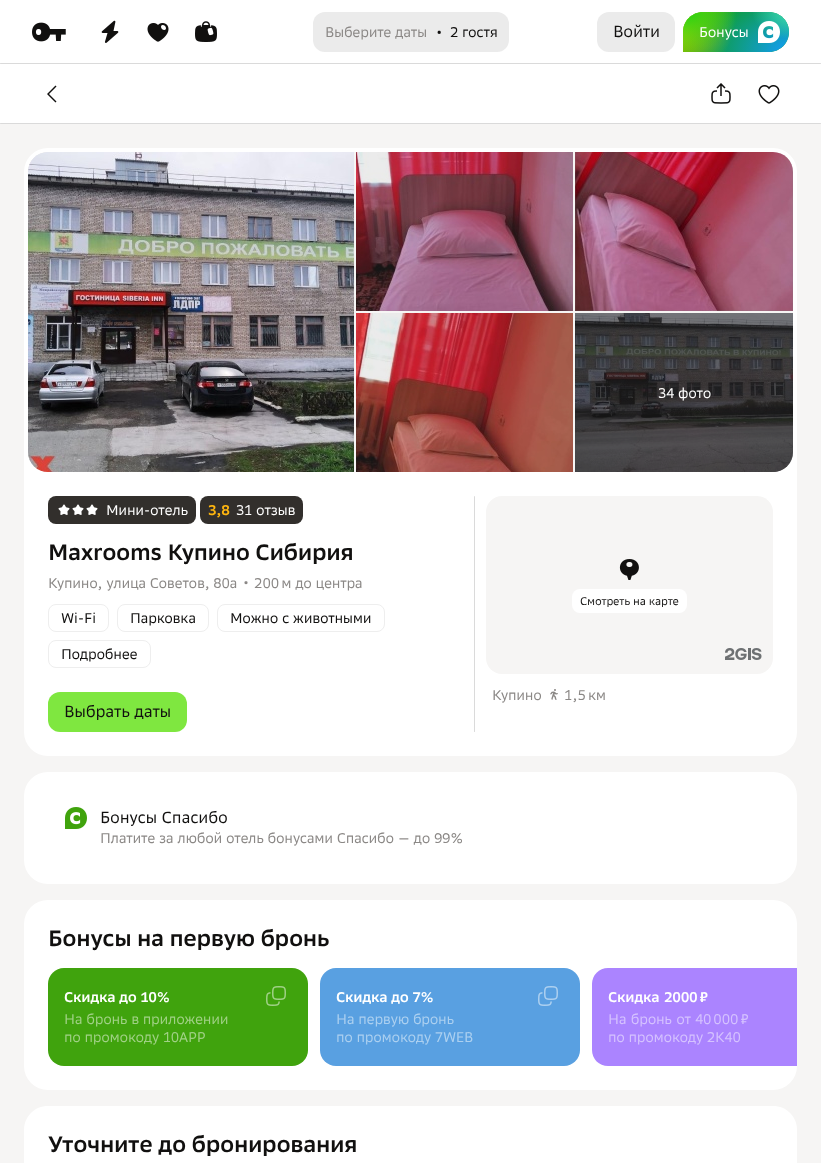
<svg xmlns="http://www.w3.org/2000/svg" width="821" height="1163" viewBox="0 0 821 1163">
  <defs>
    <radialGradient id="g1" gradientUnits="userSpaceOnUse" cx="0" cy="0" r="1" gradientTransform="matrix(104 0 0 74 789 52)"><stop offset="0" stop-color="#129dfa"/><stop offset="1" stop-color="#129dfa" stop-opacity="0"/></radialGradient>
    <radialGradient id="g2" gradientUnits="userSpaceOnUse" cx="0" cy="0" r="1" gradientTransform="matrix(41 0 0 27 793 12)"><stop offset="0" stop-color="#42e3b4"/><stop offset="1" stop-color="#42e3b4" stop-opacity="0"/></radialGradient>
    <radialGradient id="g3" gradientUnits="userSpaceOnUse" cx="0" cy="0" r="1" gradientTransform="matrix(58 0 0 71 678 12)"><stop offset="0" stop-color="#faed05"/><stop offset="1" stop-color="#faed05" stop-opacity="0"/></radialGradient>
    <radialGradient id="g4" gradientUnits="userSpaceOnUse" cx="0" cy="0" r="1" gradientTransform="matrix(57 0 0 40 683 12)"><stop offset="0" stop-color="#15d015"/><stop offset="1" stop-color="#15d015" stop-opacity="0"/></radialGradient>
    <clipPath id="clip1"><rect x="575" y="313" width="218" height="159"/></clipPath>
  </defs>
  <rect width="100%" height="100%" fill="#f6f5f4"/>
  <rect x="0" y="0" width="821" height="124" fill="#ffffff"/>
  <rect x="0" y="63" width="821" height="1" rx="0.5" fill="#dadada"/>
  <image x="32" y="22" width="34" height="20" href="img1.png"/>
  <image x="101" y="20" width="18" height="23" href="img2.png"/>
  <image x="147" y="23" width="22" height="19" href="img3.png"/>
  <image x="195" y="21" width="22" height="21" href="img4.png"/>
  <rect x="313" y="12" width="196" height="40" rx="12" fill="#ebebeb"/>
  <text x="325" y="37" font-family="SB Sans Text" font-size="14" letter-spacing="-0.3" fill="#8b8886">Выберите даты</text>
  <text x="436" y="38" font-family="SB Sans Text" font-size="16" letter-spacing="-0.25" fill="#11100f">•</text>
  <text x="450" y="37" font-family="SB Sans Text" font-size="14" letter-spacing="-0.3" fill="#11100f">2 гостя</text>
  <rect x="597" y="12" width="78" height="40" rx="12" fill="#ebebeb"/>
  <text x="613" y="37" font-family="SB Sans Text" font-size="16" letter-spacing="-0.25" fill="#11100f">Войти</text>
  <path d="M703 12H769C780 12 789 21 789 32C789 43 780 52 769 52H683V32C683 21 692 12 703 12Z" fill="#0c9c0c"/>
  <path d="M703 12H769C780 12 789 21 789 32C789 43 780 52 769 52H683V32C683 21 692 12 703 12Z" fill="url(#g1)"/>
  <path d="M703 12H769C780 12 789 21 789 32C789 43 780 52 769 52H683V32C683 21 692 12 703 12Z" fill="url(#g2)"/>
  <path d="M703 12H769C780 12 789 21 789 32C789 43 780 52 769 52H683V32C683 21 692 12 703 12Z" fill="url(#g3)"/>
  <path d="M703 12H769C780 12 789 21 789 32C789 43 780 52 769 52H683V32C683 21 692 12 703 12Z" fill="url(#g4)"/>
  <text x="699" y="37" font-family="SB Sans Text" font-size="14" letter-spacing="-0.3" fill="#ffffff">Бонусы</text>
  <image x="758" y="21" width="22" height="22" href="img5.png"/>
  <rect x="0" y="123" width="821" height="1" rx="0.5" fill="#dadada"/>
  <path d="M55.5 102.5L56.5 101.5L49 94L56.5 86.5L55.5 85.5L47 94Z" fill="#11100f" fill-rule="evenodd"/>
  <image x="711" y="83" width="20" height="21" href="img6.png"/>
  <image x="758" y="85" width="22" height="19" href="img7.png"/>
  <rect x="24" y="148" width="773" height="608" rx="24" fill="#ffffff"/>
  <rect x="28" y="152" width="765" height="320" rx="20" fill="#f6f5f4"/>
  <path d="M48 152H354V472H48C37 472 28 463 28 452V172C28 161 37 152 48 152Z" fill="#edebea"/>
  <image x="28" y="152" width="326" height="320" href="img8.png"/>
  <image x="356" y="152" width="217" height="159" href="img9.png"/>
  <image x="356" y="313" width="217" height="159" href="img10.png"/>
  <path d="M575 152H773C784 152 793 161 793 172V311H575Z" fill="#edebea"/>
  <image x="575" y="152" width="218" height="159" href="img11.png"/>
  <path d="M575 152V311H793V172L792 168V310H576V152H777H773Z" fill="#848382" fill-opacity="0.16"/>
  <image x="575" y="313" width="218" height="159" href="img12.png"/>
  <path d="M575 313H793V452C793 463 784 472 773 472H575Z" fill="#000000" fill-opacity="0.5"/>
  <g clip-path="url(#clip1)">
    <path d="M575 313V472H740C755 472 789 479 793 455V313Z" fill="#848382" fill-opacity="0.16"/>
  </g>
  <text x="658" y="398" font-family="SB Sans Text" font-size="14" letter-spacing="-0.3" fill="#ffffff">34 фото</text>
  <rect x="48" y="496" width="148" height="28" rx="8" fill="#322f2c"/>
  <image x="58" y="504" width="12" height="11" href="img13.png"/>
  <image x="72" y="504" width="12" height="11" href="img13.png"/>
  <image x="86" y="504" width="12" height="11" href="img13.png"/>
  <text x="106" y="515" font-family="SB Sans Text" font-size="14" letter-spacing="-0.3" fill="#ffffff">Мини-отель</text>
  <rect x="200" y="496" width="103" height="28" rx="8" fill="#322f2c"/>
  <text x="208" y="515" font-family="SB Sans Text" font-size="14" font-weight="600" letter-spacing="-0.3" fill="#ffb60f">3,8</text>
  <text x="236" y="515" font-family="SB Sans Text" font-size="14" letter-spacing="-0.3" fill="#ffffff">31 отзыв</text>
  <text x="48" y="560" font-family="SB Sans Text" font-size="22" font-weight="600" letter-spacing="-0.4" fill="#11100f">Maxrooms Купино Сибирия</text>
  <text x="48" y="588" font-family="SB Sans Text" font-size="14" letter-spacing="-0.3" fill="#8b8886">Купино, улица Советов, 80а</text>
  <text x="243" y="588" font-family="SB Sans Text" font-size="15" letter-spacing="-0.3" fill="#8b8886">•</text>
  <text x="254" y="588" font-family="SB Sans Text" font-size="14" letter-spacing="-0.3" fill="#8b8886">200 м до центра</text>
  <rect x="48.5" y="604.5" width="60" height="27" rx="7.5" fill="none" stroke="#eeeeee"/>
  <text x="61" y="623" font-family="SB Sans Text" font-size="14" letter-spacing="-0.3" fill="#11100f">Wi-Fi</text>
  <rect x="117.5" y="604.5" width="91" height="27" rx="7.5" fill="none" stroke="#eeeeee"/>
  <text x="130" y="623" font-family="SB Sans Text" font-size="14" letter-spacing="-0.3" fill="#11100f">Парковка</text>
  <rect x="217.5" y="604.5" width="167" height="27" rx="7.5" fill="none" stroke="#eeeeee"/>
  <text x="230" y="623" font-family="SB Sans Text" font-size="14" letter-spacing="-0.3" fill="#11100f">Можно с животными</text>
  <rect x="48.5" y="640.5" width="102" height="27" rx="7.5" fill="none" stroke="#eeeeee"/>
  <text x="61" y="659" font-family="SB Sans Text" font-size="14" letter-spacing="-0.3" fill="#11100f">Подробнее</text>
  <rect x="48" y="692" width="139" height="40" rx="12" fill="#7fe740"/>
  <text x="64" y="717" font-family="SB Sans Text" font-size="16" letter-spacing="-0.25" fill="#11100f">Выбрать даты</text>
  <rect x="474" y="496" width="1" height="236" rx="0.5" fill="#dadada"/>
  <rect x="486" y="496" width="287" height="178" rx="16" fill="#f6f5f4"/>
  <image x="619" y="559" width="20" height="21" href="img14.png"/>
  <rect x="572" y="589" width="115" height="24" rx="8" fill="#ffffff"/>
  <text x="580" y="605" font-family="SB Sans Text" font-size="11" letter-spacing="-0.2" fill="#11100f">Смотреть на карте</text>
  <image x="725" y="648" width="37" height="12" href="img15.png"/>
  <text x="492" y="700" font-family="SB Sans Text" font-size="14" letter-spacing="-0.3" fill="#8b8886">Купино</text>
  <image x="550" y="689" width="8" height="11" href="img16.png"/>
  <text x="564" y="700" font-family="SB Sans Text" font-size="14" letter-spacing="-0.3" fill="#8b8886">1,5 км</text>
  <rect x="24" y="772" width="773" height="112" rx="24" fill="#ffffff"/>
  <image x="65" y="807" width="22" height="22" href="img17.png"/>
  <text x="100" y="823" font-family="SB Sans Text" font-size="16" letter-spacing="-0.25" fill="#11100f">Бонусы Спасибо</text>
  <text x="100" y="843" font-family="SB Sans Text" font-size="14" letter-spacing="-0.3" fill="#8b8886">Платите за любой отель бонусами Спасибо — до 99%</text>
  <rect x="24" y="900" width="773" height="190" rx="24" fill="#ffffff"/>
  <text x="48" y="946" font-family="SB Sans Text" font-size="22" font-weight="600" letter-spacing="-0.4" fill="#11100f">Бонусы на первую бронь</text>
  <rect x="48" y="968" width="260" height="98" rx="16" fill="#40a30d"/>
  <text x="64" y="1002" font-family="SB Sans Text" font-size="14" font-weight="600" letter-spacing="-0.3" fill="#ffffff">Скидка до 10%</text>
  <image x="266" y="986" width="20" height="20" href="img18.png"/>
  <text x="64" y="1024" font-family="SB Sans Text" font-size="14" letter-spacing="-0.3" fill="#a0d186">На бронь в приложении</text>
  <text x="64" y="1042" font-family="SB Sans Text" font-size="14" letter-spacing="-0.3" fill="#a0d186">по промокоду 10APP</text>
  <rect x="320" y="968" width="260" height="98" rx="16" fill="#59a0e1"/>
  <text x="336" y="1002" font-family="SB Sans Text" font-size="14" font-weight="600" letter-spacing="-0.3" fill="#ffffff">Скидка до 7%</text>
  <image x="538" y="986" width="20" height="20" href="img19.png"/>
  <text x="336" y="1024" font-family="SB Sans Text" font-size="14" letter-spacing="-0.3" fill="#acd0f0">На первую бронь</text>
  <text x="336" y="1042" font-family="SB Sans Text" font-size="14" letter-spacing="-0.3" fill="#acd0f0">по промокоду 7WEB</text>
  <path d="M608 968H797V1066H608C599 1066 592 1059 592 1050V984C592 975 599 968 608 968Z" fill="#ab84ff"/>
  <text x="608" y="1002" word-spacing="1" font-family="SB Sans Text" font-size="14" font-weight="600" letter-spacing="-0.3" fill="#ffffff">Скидка 2000 ₽</text>
  <text x="608" y="1024" word-spacing="0.5" font-family="SB Sans Text" font-size="14" letter-spacing="-0.3" fill="#d5c2ff">На бронь от 40 000 ₽</text>
  <text x="608" y="1042" font-family="SB Sans Text" font-size="14" letter-spacing="-0.3" fill="#d5c2ff">по промокоду 2K40</text>
  <path d="M48 1106H773C786.5 1106 797 1116.5 797 1130V1163H24V1130C24 1116.5 34.5 1106 48 1106Z" fill="#ffffff"/>
  <text x="48" y="1152" font-family="SB Sans Text" font-size="22" font-weight="600" letter-spacing="-0.4" fill="#11100f">Уточните до бронирования</text>
</svg>
